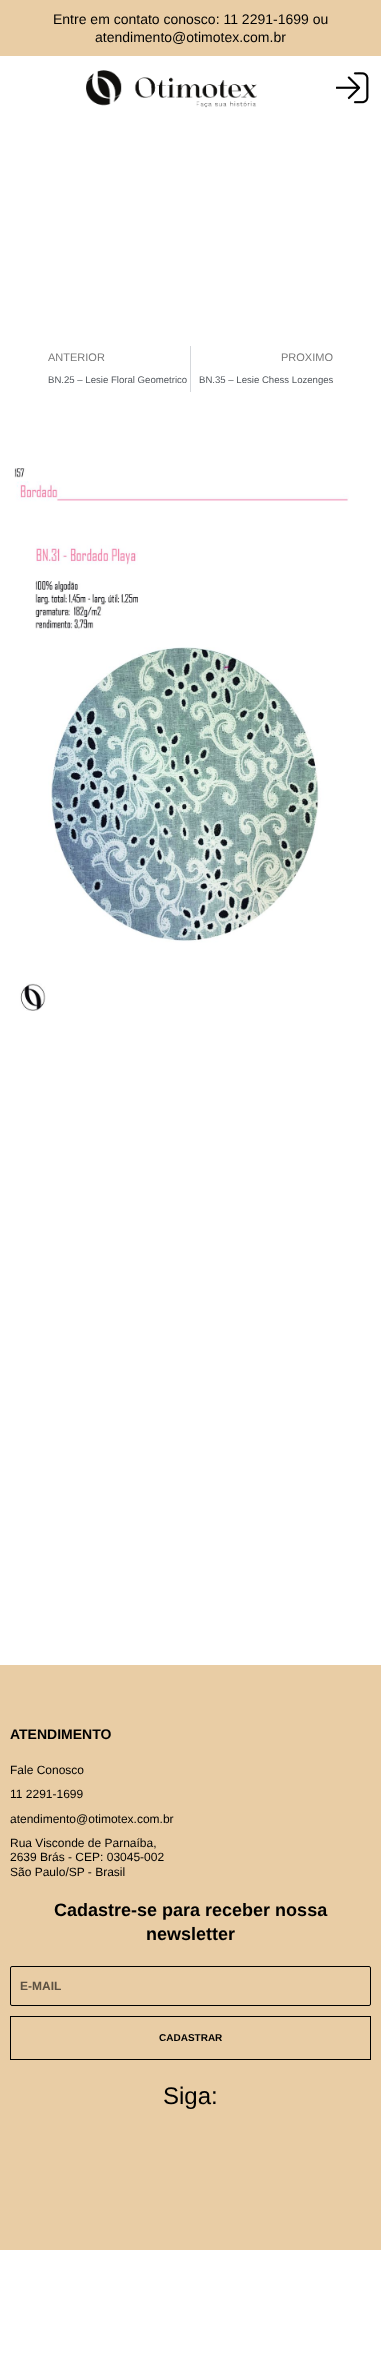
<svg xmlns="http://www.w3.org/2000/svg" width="381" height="2354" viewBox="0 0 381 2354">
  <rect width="100%" height="100%" fill="#ffffff"/>
  <rect x="0" y="0" width="381" height="56" fill="#e9cda5"/>
  <text x="53" y="24" font-family="Liberation Sans" font-size="14" fill="#000000">Entre em contato conosco: 11 2291-1699 ou</text>
  <text x="95" y="42" font-family="Liberation Sans" font-size="14" fill="#000000">atendimento@otimotex.com.br</text>
  <image x="86" y="70" width="171" height="38" href="img1.png"/>
  <image x="336" y="72" width="33" height="32" href="img2.png"/>
  <text x="48" y="361" font-family="Liberation Sans" font-size="11" fill="#7a7a7a">ANTERIOR</text>
  <text x="48" y="383" font-family="Liberation Sans" font-size="9.6" fill="#54595f">BN.25 – Lesie Floral Geometrico</text>
  <rect x="190" y="346" width="1" height="46" fill="#d5d8dc"/>
  <text x="281" y="361" font-family="Liberation Sans" font-size="11" fill="#7a7a7a">PROXIMO</text>
  <text x="199" y="383" font-family="Liberation Sans" font-size="9.6" fill="#54595f">BN.35 – Lesie Chess Lozenges</text>
  <image x="14" y="468" width="335" height="543" href="img3.png"/>
  <rect x="0" y="1665" width="381" height="585" fill="#e9cda5"/>
  <text x="10" y="1739" font-family="Liberation Sans" font-size="14" font-weight="bold" fill="#000000">ATENDIMENTO</text>
  <text x="10" y="1774" font-family="Liberation Sans" font-size="12" fill="#000000">Fale Conosco</text>
  <text x="10" y="1798" font-family="Liberation Sans" font-size="12" fill="#000000">11 2291-1699</text>
  <text x="10" y="1823" font-family="Liberation Sans" font-size="12" fill="#000000">atendimento@otimotex.com.br</text>
  <text x="10" y="1847" font-family="Liberation Sans" font-size="12" fill="#000000">Rua Visconde de Parnaíba,</text>
  <text x="10" y="1861" font-family="Liberation Sans" font-size="12" fill="#000000">2639 Brás - CEP: 03045-002</text>
  <text x="10" y="1876" font-family="Liberation Sans" font-size="12" fill="#000000">São Paulo/SP - Brasil</text>
  <text x="54" y="1916" font-family="Liberation Sans" font-size="18" font-weight="bold" fill="#000000">Cadastre-se para receber nossa</text>
  <text x="146" y="1940" font-family="Liberation Sans" font-size="18" font-weight="bold" fill="#000000">newsletter</text>
  <rect x="10.5" y="1966.5" width="360" height="39" rx="1.5" fill="none" stroke="#000000"/>
  <text x="20" y="1990" font-family="Liberation Sans" font-size="12" font-weight="bold" fill="#5d5242">E-MAIL</text>
  <rect x="10.5" y="2016.5" width="360" height="43" fill="none" stroke="#000000"/>
  <text x="159" y="2041" font-family="Liberation Sans" font-size="10" font-weight="bold" fill="#000000">CADASTRAR</text>
  <text x="163" y="2104" font-family="Liberation Sans" font-size="24" fill="#000000">Siga:</text>
</svg>
